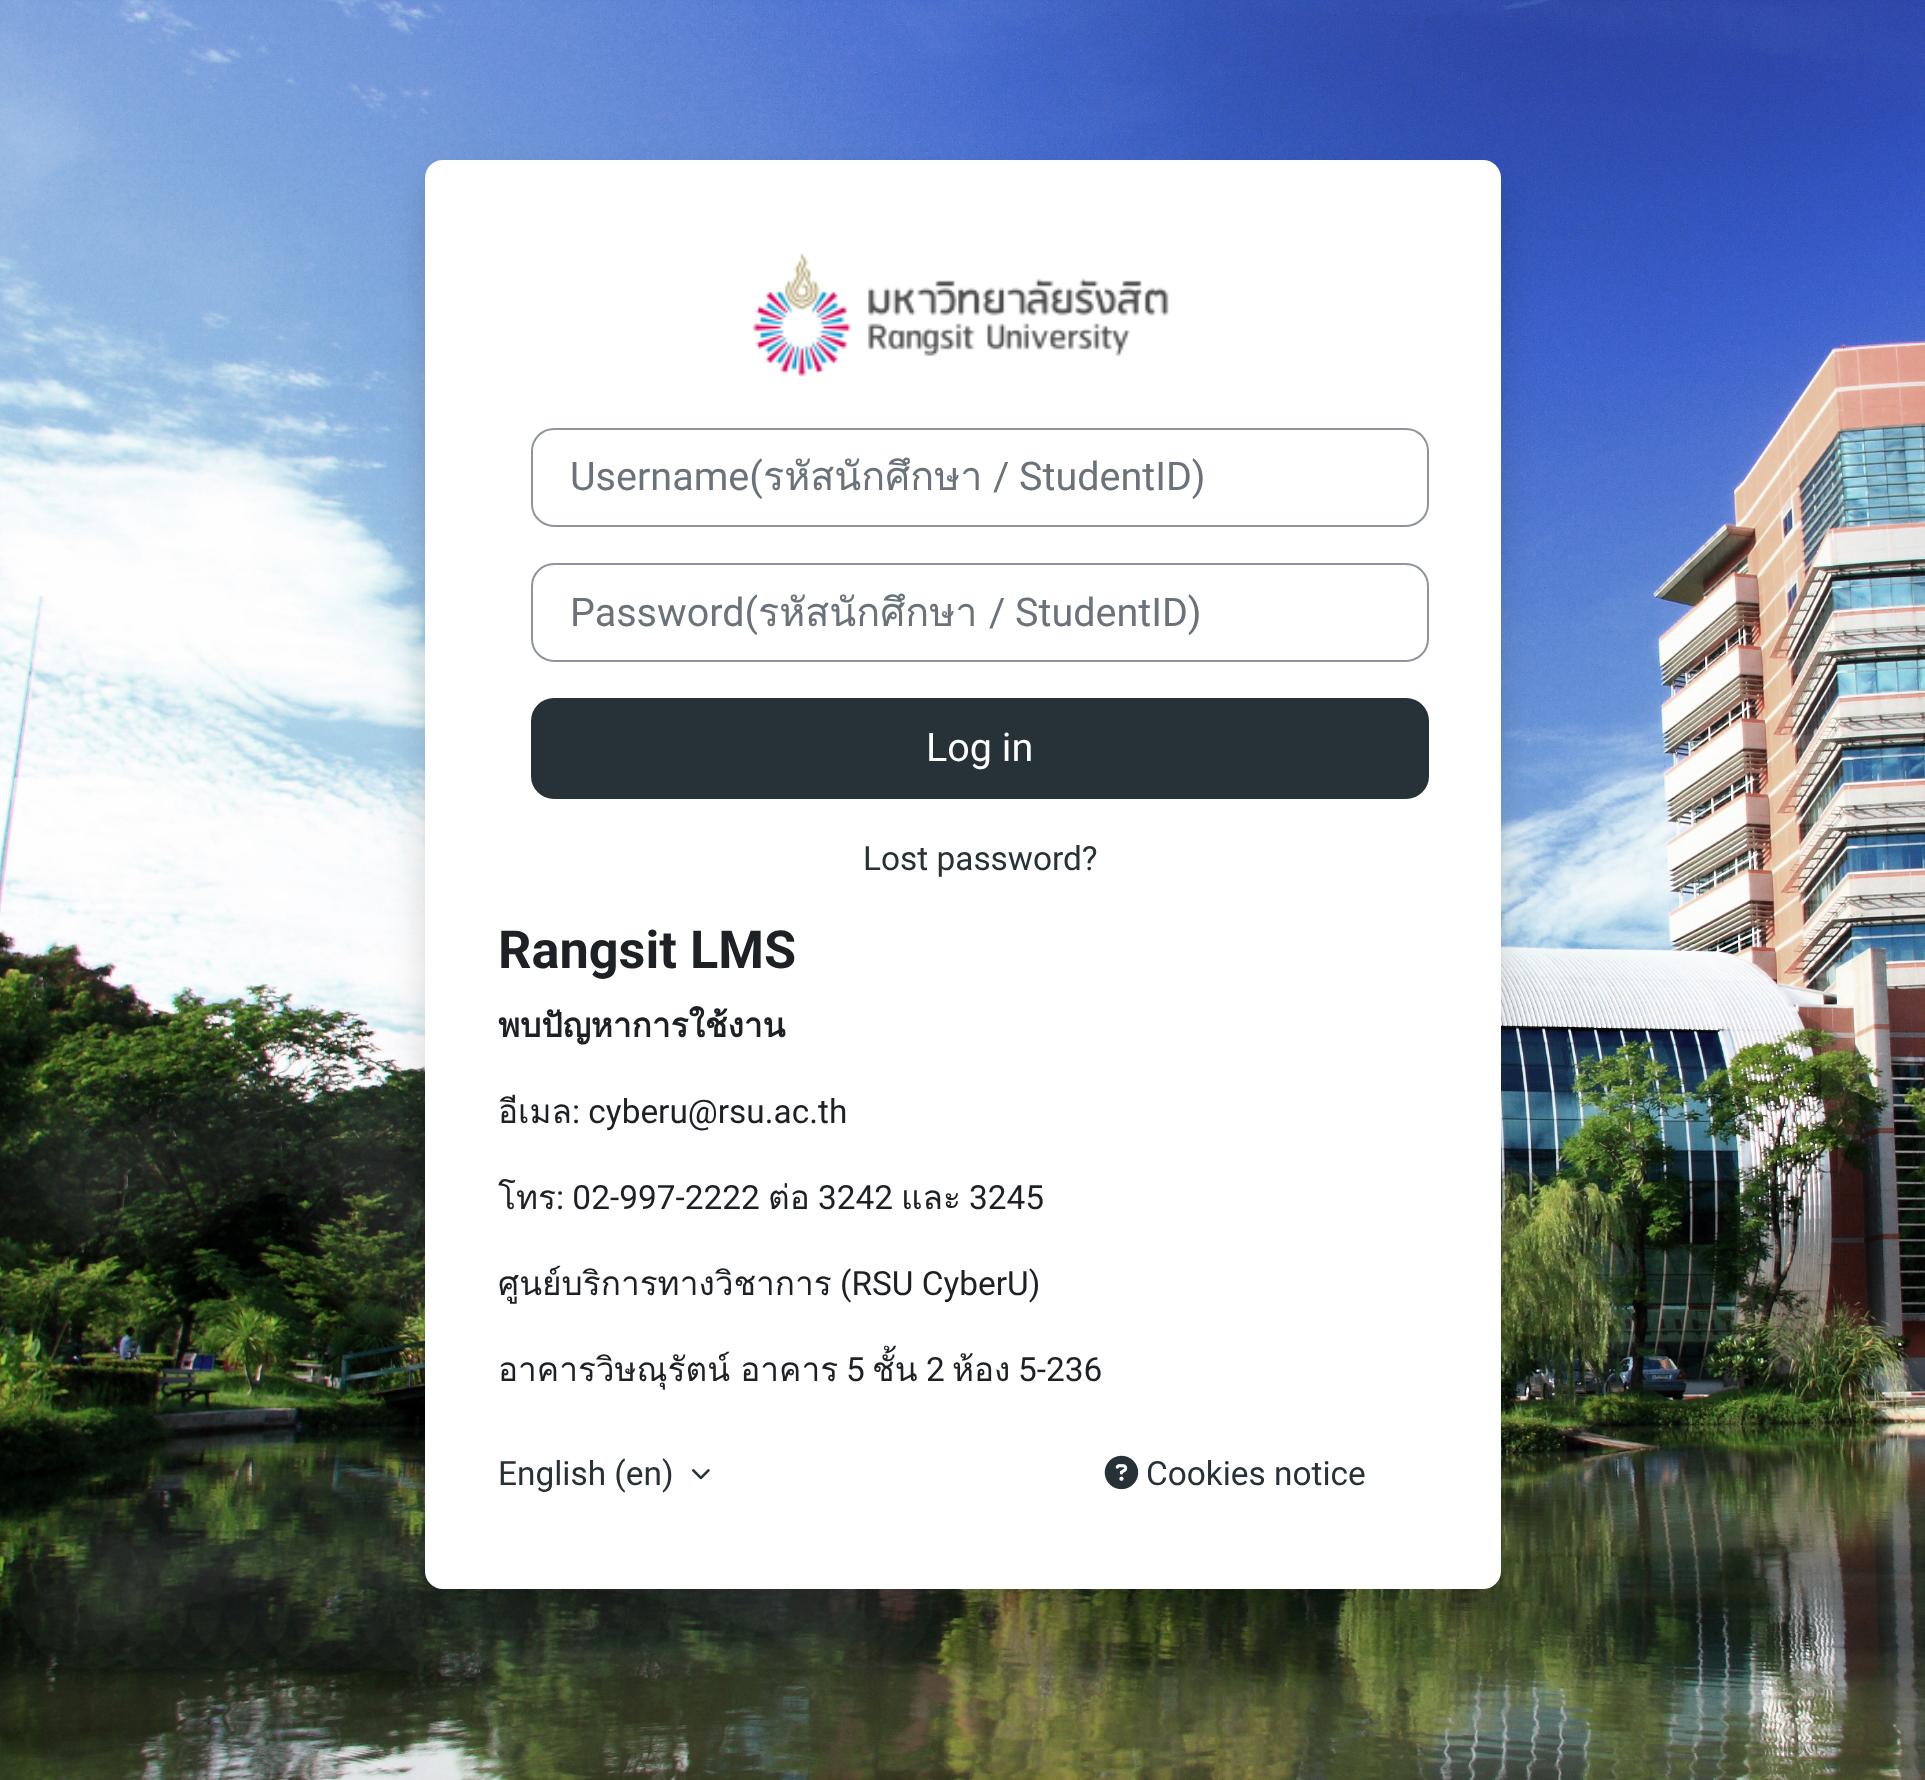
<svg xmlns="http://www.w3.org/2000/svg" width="1925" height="1780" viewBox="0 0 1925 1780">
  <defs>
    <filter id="blur1" x="-50%" y="-200%" width="200%" height="500%"><feGaussianBlur stdDeviation="18"/></filter>
  </defs>
  <rect width="100%" height="100%" fill="#ffffff"/>
  <image x="0" y="0" width="1925" height="1780" href="img1.png"/>
  <rect x="425" y="178" width="1076" height="1429" rx="18" fill="#000000" fill-opacity="0.15" filter="url(#blur1)"/>
  <rect x="425" y="160" width="1076" height="1429" rx="18" fill="#ffffff"/>
  <image x="753" y="253" width="416" height="124" href="img2.png"/>
  <rect x="532" y="429" width="896" height="97" rx="22" fill="none" stroke="#8f959e" stroke-width="2"/>
  <text x="570" y="490" font-family="Roboto" font-size="39.5" fill="#6a737b">Username(</text>
  <text x="763" y="490" font-family="Loma" font-size="39.5" fill="#6a737b">รหัสนักศึกษา</text>
  <text x="993" y="490" font-family="Roboto" font-size="39.5" fill="#6a737b">/ StudentID)</text>
  <rect x="532" y="564" width="896" height="97" rx="22" fill="none" stroke="#8f959e" stroke-width="2"/>
  <text x="570" y="626" font-family="Roboto" font-size="39.5" fill="#6a737b">Password(</text>
  <text x="758" y="626" font-family="Loma" font-size="39.5" fill="#6a737b">รหัสนักศึกษา</text>
  <text x="989" y="626" font-family="Roboto" font-size="39.5" fill="#6a737b">/ StudentID)</text>
  <rect x="532" y="699" width="896" height="99" rx="22" fill="#263238" stroke="#263238" stroke-width="2"/>
  <text x="926" y="761" font-family="Roboto" font-size="39.5" fill="#ffffff">Log in</text>
  <text x="863" y="870" font-family="Roboto" font-size="33.4" fill="#263238">Lost password?</text>
  <text x="498" y="968" font-family="Roboto" font-size="52.25" font-weight="bold" fill="#1d2125">Rangsit LMS</text>
  <text x="498" y="1037" font-family="Loma" font-size="33.4" font-weight="bold" fill="#1d2125">พบปัญหาการใช้งาน</text>
  <text x="498" y="1123" font-family="Loma" font-size="33.4" fill="#1d2125">อีเมล</text>
  <text x="572" y="1123" font-family="Roboto" font-size="33.4" fill="#1d2125">: cyberu@rsu.ac.th</text>
  <text x="498" y="1209" font-family="Loma" font-size="33.4" fill="#1d2125">โทร</text>
  <text x="556" y="1209" font-family="Roboto" font-size="33.4" fill="#1d2125">: 02-997-2222</text>
  <text x="768" y="1209" font-family="Loma" font-size="33.4" fill="#1d2125">ต่อ</text>
  <text x="818" y="1209" font-family="Roboto" font-size="33.4" fill="#1d2125">3242</text>
  <text x="901" y="1209" font-family="Loma" font-size="33.4" fill="#1d2125">และ</text>
  <text x="969" y="1209" font-family="Roboto" font-size="33.4" fill="#1d2125">3245</text>
  <text x="498" y="1295" font-family="Loma" font-size="33.4" fill="#1d2125">ศูนย์บริการทางวิชาการ</text>
  <text x="840" y="1295" font-family="Roboto" font-size="33.4" fill="#1d2125">(RSU CyberU)</text>
  <text x="498" y="1381" word-spacing="-1" font-family="Loma" font-size="33.4" fill="#1d2125">อาคารวิษณุรัตน์ อาคาร</text>
  <text x="846" y="1381" font-family="Roboto" font-size="33.4" fill="#1d2125">5</text>
  <text x="872" y="1381" font-family="Loma" font-size="33.4" fill="#1d2125">ชั้น</text>
  <text x="926" y="1381" font-family="Roboto" font-size="33.4" fill="#1d2125">2</text>
  <text x="952" y="1381" font-family="Loma" font-size="33.4" fill="#1d2125">ห้อง</text>
  <text x="1018" y="1381" font-family="Roboto" font-size="33.4" fill="#1d2125">5-236</text>
  <text x="498" y="1485" font-family="Roboto" font-size="33.4" fill="#263238">English (en)</text>
  <image x="692" y="1469" width="18" height="11" href="img3.png"/>
  <image x="1104" y="1455" width="35" height="35" href="img4.png"/>
  <text x="1146" y="1485" font-family="Roboto" font-size="33.4" fill="#263238">Cookies notice</text>
</svg>
